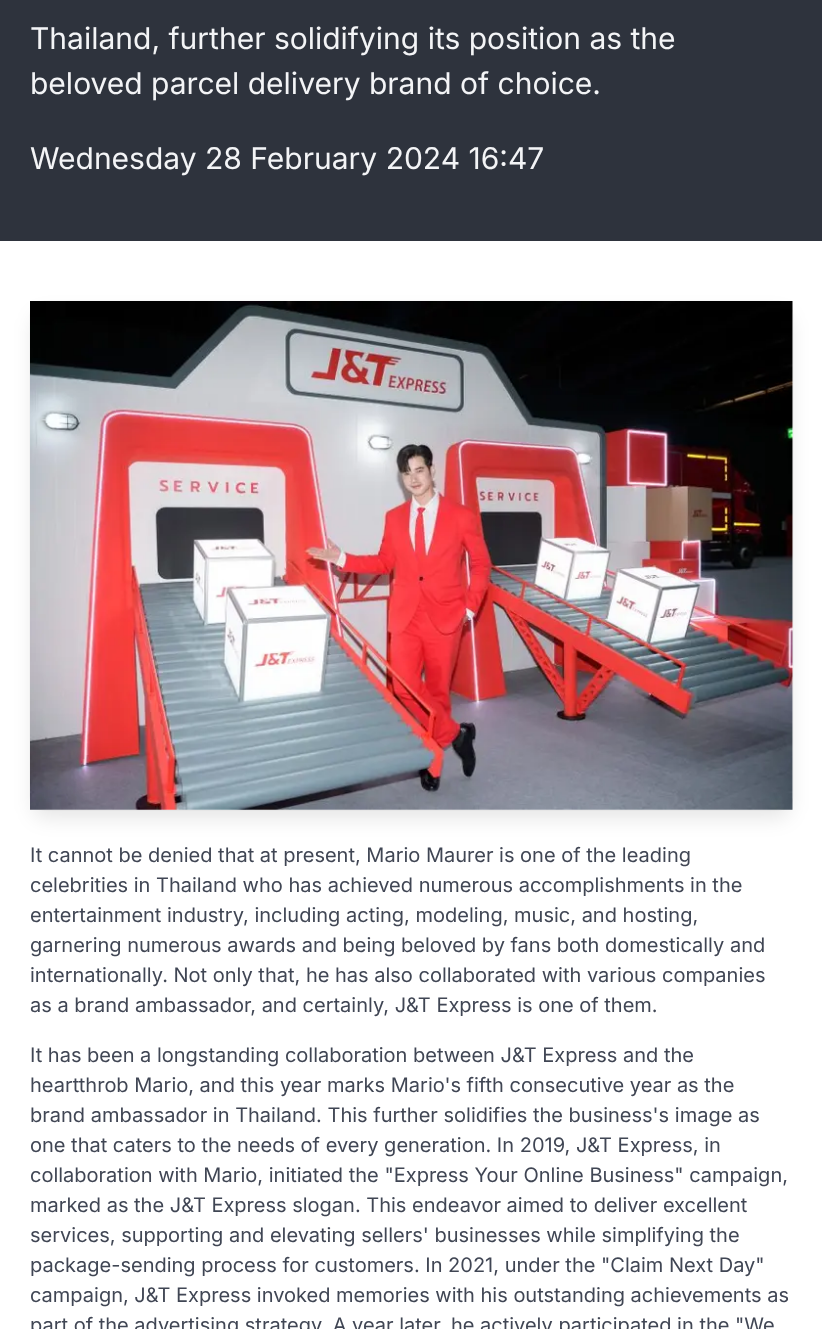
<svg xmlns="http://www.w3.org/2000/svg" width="822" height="1329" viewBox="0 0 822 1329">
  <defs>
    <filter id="blur1" x="-50%" y="-200%" width="200%" height="500%"><feGaussianBlur stdDeviation="10"/></filter>
  </defs>
  <rect width="100%" height="100%" fill="#ffffff"/>
  <rect x="0" y="0" width="822" height="241" fill="#2e333d"/>
  <text x="30" y="49" font-family="Inter" font-size="30" fill="#f3f4f6">Thailand, further solidifying its position as the</text>
  <text x="30" y="94" font-family="Inter" font-size="30" fill="#f3f4f6">beloved parcel delivery brand of choice.</text>
  <text x="30" y="169" font-family="Inter" font-size="30" fill="#f3f4f6">Wednesday 28 February 2024 16:47</text>
  <rect x="29.5" y="300.5" width="764" height="510" rx="15.5" fill="none" stroke="#fafafa"/>
  <rect x="33" y="314" width="757" height="504" rx="13" fill="#090a0c" fill-opacity="0.1" filter="url(#blur1)"/>
  <rect x="30" y="301" width="763" height="509" rx="15" fill="#ffffff"/>
  <image x="30" y="301" width="763" height="509" href="img1.png"/>
  <text x="30" y="862" font-family="Inter" font-size="20" fill="#404654">It cannot be denied that at present, Mario Maurer is one of the leading</text>
  <text x="30" y="892" font-family="Inter" font-size="20" fill="#404654">celebrities in Thailand who has achieved numerous accomplishments in the</text>
  <text x="30" y="922" font-family="Inter" font-size="20" fill="#404654">entertainment industry, including acting, modeling, music, and hosting,</text>
  <text x="30" y="952" font-family="Inter" font-size="20" fill="#404654">garnering numerous awards and being beloved by fans both domestically and</text>
  <text x="30" y="982" font-family="Inter" font-size="20" fill="#404654">internationally. Not only that, he has also collaborated with various companies</text>
  <text x="30" y="1012" font-family="Inter" font-size="20" fill="#404654">as a brand ambassador, and certainly, J&amp;T Express is one of them.</text>
  <text x="30" y="1062" font-family="Inter" font-size="20" fill="#404654">It has been a longstanding collaboration between J&amp;T Express and the</text>
  <text x="30" y="1092" font-family="Inter" font-size="20" fill="#404654">heartthrob Mario, and this year marks Mario's fifth consecutive year as the</text>
  <text x="30" y="1122" font-family="Inter" font-size="20" fill="#404654">brand ambassador in Thailand. This further solidifies the business's image as</text>
  <text x="30" y="1152" font-family="Inter" font-size="20" fill="#404654">one that caters to the needs of every generation. In 2019, J&amp;T Express, in</text>
  <text x="30" y="1182" font-family="Inter" font-size="20" fill="#404654">collaboration with Mario, initiated the "Express Your Online Business" campaign,</text>
  <text x="30" y="1212" font-family="Inter" font-size="20" fill="#404654">marked as the J&amp;T Express slogan. This endeavor aimed to deliver excellent</text>
  <text x="30" y="1242" font-family="Inter" font-size="20" fill="#404654">services, supporting and elevating sellers' businesses while simplifying the</text>
  <text x="30" y="1272" font-family="Inter" font-size="20" fill="#404654">package-sending process for customers. In 2021, under the "Claim Next Day"</text>
  <text x="30" y="1302" font-family="Inter" font-size="20" fill="#404654">campaign, J&amp;T Express invoked memories with his outstanding achievements as</text>
  <text x="30" y="1332" font-family="Inter" font-size="20" fill="#404654">part of the advertising strategy. A year later, he actively participated in the "We</text>
</svg>
